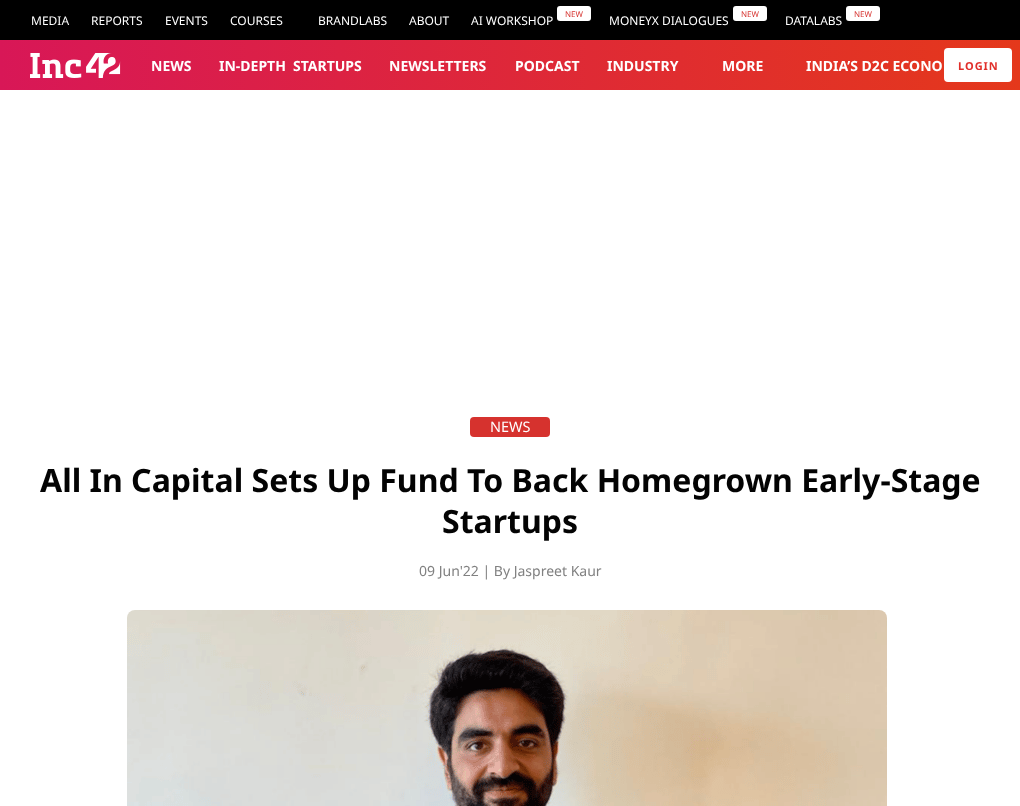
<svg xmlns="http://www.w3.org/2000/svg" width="1020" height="806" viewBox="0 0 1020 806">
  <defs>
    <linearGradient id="g1" gradientUnits="userSpaceOnUse" x1="0" y1="65" x2="1020" y2="65"><stop offset="0" stop-color="#d81757"/><stop offset="1" stop-color="#e4381b"/></linearGradient>
  </defs>
  <rect width="100%" height="100%" fill="#ffffff"/>
  <rect x="0" y="0" width="1020" height="40" fill="#000000"/>
  <text x="31" y="25" font-family="Noto Sans" font-size="12" fill="#ffffff">MEDIA</text>
  <text x="91" y="25" font-family="Noto Sans" font-size="12" fill="#ffffff">REPORTS</text>
  <text x="165" y="25" font-family="Noto Sans" font-size="12" fill="#ffffff">EVENTS</text>
  <text x="230" y="25" font-family="Noto Sans" font-size="12" fill="#ffffff">COURSES</text>
  <text x="318" y="25" font-family="Noto Sans" font-size="12" fill="#ffffff">BRANDLABS</text>
  <text x="409" y="25" font-family="Noto Sans" font-size="12" fill="#ffffff">ABOUT</text>
  <rect x="557" y="6" width="34" height="15" rx="3" fill="#ffffff"/>
  <text x="565" y="17" font-family="Noto Sans" font-size="8" fill="#d6322e">NEW</text>
  <text x="471" y="25" font-family="Noto Sans" font-size="12" fill="#ffffff">AI WORKSHOP</text>
  <rect x="733" y="6" width="34" height="15" rx="3" fill="#ffffff"/>
  <text x="741" y="17" font-family="Noto Sans" font-size="8" fill="#d6322e">NEW</text>
  <text x="609" y="25" font-family="Noto Sans" font-size="12" fill="#ffffff">MONEYX DIALOGUES</text>
  <rect x="846" y="6" width="34" height="15" rx="3" fill="#ffffff"/>
  <text x="854" y="17" font-family="Noto Sans" font-size="8" fill="#d6322e">NEW</text>
  <text x="785" y="25" font-family="Noto Sans" font-size="12" fill="#ffffff">DATALABS</text>
  <rect x="0" y="40" width="1020" height="50" fill="url(#g1)"/>
  <image x="30" y="53" width="91" height="25" href="img1.png"/>
  <text x="151" y="71" font-family="Noto Sans" font-size="14" font-weight="bold" fill="#ffffff">NEWS</text>
  <text x="219" y="71" font-family="Noto Sans" font-size="14" font-weight="bold" fill="#ffffff">IN-DEPTH</text>
  <text x="293" y="71" font-family="Noto Sans" font-size="14" font-weight="bold" fill="#ffffff">STARTUPS</text>
  <text x="389" y="71" font-family="Noto Sans" font-size="14" font-weight="bold" fill="#ffffff">NEWSLETTERS</text>
  <text x="515" y="71" font-family="Noto Sans" font-size="14" font-weight="bold" fill="#ffffff">PODCAST</text>
  <text x="607" y="71" font-family="Noto Sans" font-size="14" font-weight="bold" fill="#ffffff">INDUSTRY</text>
  <text x="722" y="71" font-family="Noto Sans" font-size="14" font-weight="bold" fill="#ffffff">MORE</text>
  <text x="806" y="71" font-family="Noto Sans" font-size="14" font-weight="bold" fill="#ffffff">INDIA’S D2C ECONO</text>
  <rect x="944" y="48" width="68" height="34" rx="4" fill="#ffffff"/>
  <text x="958" y="70" font-family="Noto Sans" font-size="11" font-weight="bold" letter-spacing="1" fill="#e12f2a">LOGIN</text>
  <rect x="470" y="417" width="80" height="20" rx="4" fill="#d6322e"/>
  <text x="490" y="432" font-family="Noto Sans" font-size="14.5" fill="#ffffff">NEWS</text>
  <text x="40" y="492" font-family="Noto Sans" font-size="32" font-weight="bold" fill="#030303">All In Capital Sets Up Fund To Back Homegrown Early-Stage</text>
  <text x="442" y="533" font-family="Noto Sans" font-size="32" font-weight="bold" fill="#030303">Startups</text>
  <text x="419" y="576" font-family="Noto Sans" font-size="14" fill="#818181">09 Jun'22 | By Jaspreet Kaur</text>
  <image x="127" y="610" width="760" height="196" href="img2.png"/>
</svg>
